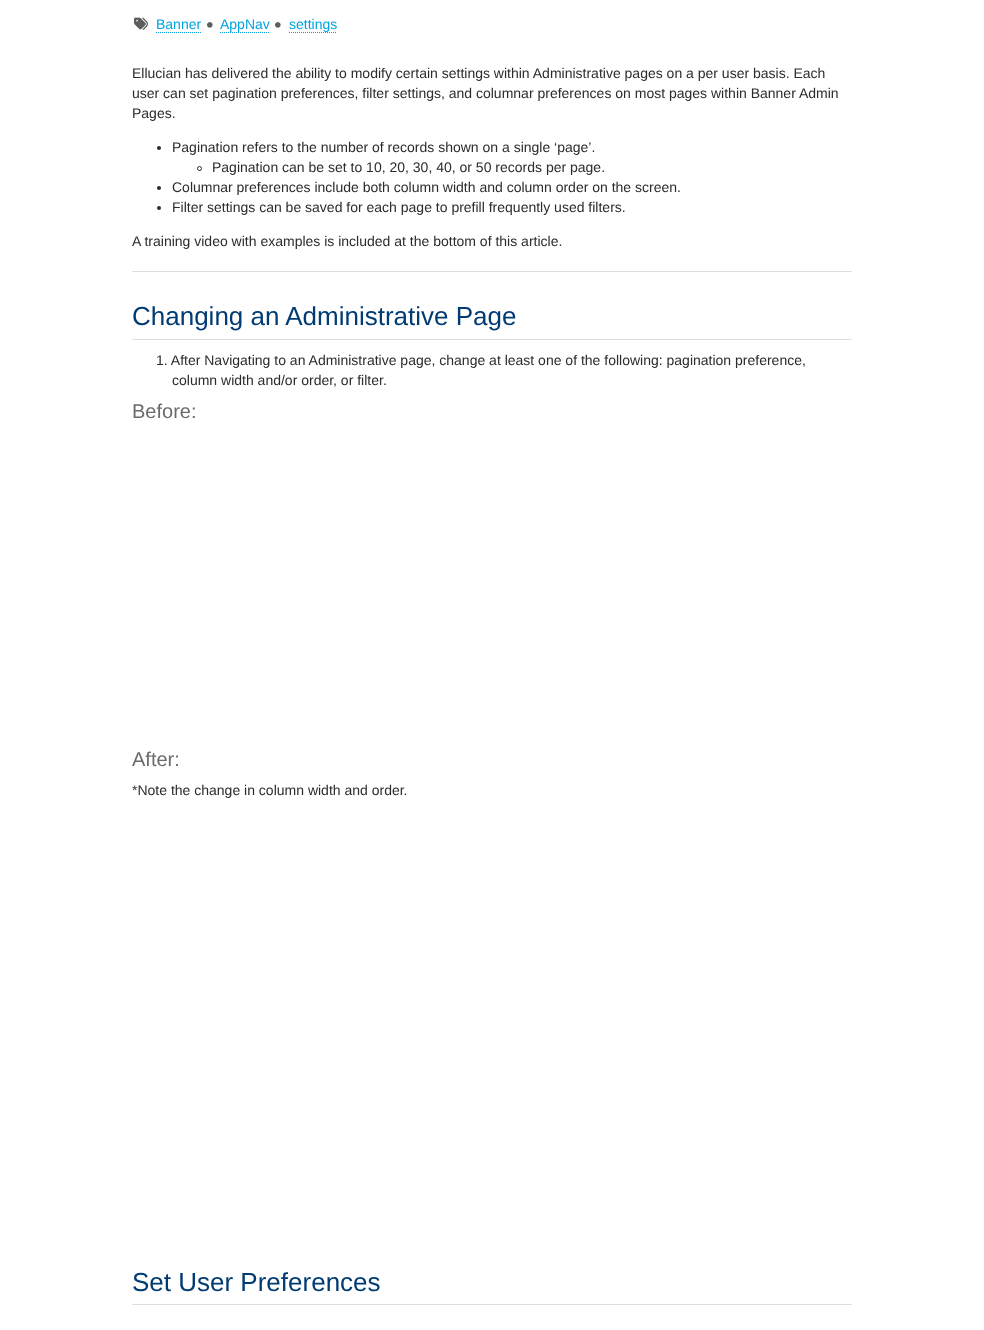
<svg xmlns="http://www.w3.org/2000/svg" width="984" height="1330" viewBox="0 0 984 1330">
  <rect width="100%" height="100%" fill="#ffffff"/>
  <image x="134" y="17" width="14" height="13" href="img1.png"/>
  <text x="156" y="29" font-family="Liberation Sans" font-size="14" fill="#00a3e0">Banner</text>
  <path d="M156 32.5H201" fill="none" stroke="#00a3e0" stroke-dasharray="1 1"/>
  <image x="207" y="22" width="6" height="6" href="img2.png"/>
  <text x="220" y="29" font-family="Liberation Sans" font-size="14" fill="#00a3e0">AppNav</text>
  <path d="M220 32.5H269" fill="none" stroke="#00a3e0" stroke-dasharray="1 1"/>
  <image x="275" y="22" width="6" height="6" href="img2.png"/>
  <text x="289" y="29" font-family="Liberation Sans" font-size="14" fill="#00a3e0">settings</text>
  <path d="M289 32.5H337" fill="none" stroke="#00a3e0" stroke-dasharray="1 1"/>
  <text x="132" y="78" font-family="Liberation Sans" font-size="14" fill="#2b2b2b">Ellucian has delivered the ability to modify certain settings within Administrative pages on a per user basis. Each</text>
  <text x="132" y="98" font-family="Liberation Sans" font-size="14" fill="#2b2b2b">user can set pagination preferences, filter settings, and columnar preferences on most pages within Banner Admin</text>
  <text x="132" y="118" font-family="Liberation Sans" font-size="14" fill="#2b2b2b">Pages.</text>
  <circle cx="159" cy="148" r="2" fill="#2b2b2b"/>
  <text x="172" y="152" font-family="Liberation Sans" font-size="14" fill="#2b2b2b">Pagination refers to the number of records shown on a single ‘page’.</text>
  <circle cx="199.5" cy="168.5" r="2" fill="none" stroke="#2b2b2b"/>
  <text x="212" y="172" font-family="Liberation Sans" font-size="14" fill="#2b2b2b">Pagination can be set to 10, 20, 30, 40, or 50 records per page.</text>
  <circle cx="159" cy="188" r="2" fill="#2b2b2b"/>
  <text x="172" y="192" font-family="Liberation Sans" font-size="14" fill="#2b2b2b">Columnar preferences include both column width and column order on the screen.</text>
  <circle cx="159" cy="208" r="2" fill="#2b2b2b"/>
  <text x="172" y="212" font-family="Liberation Sans" font-size="14" fill="#2b2b2b">Filter settings can be saved for each page to prefill frequently used filters.</text>
  <text x="132" y="246" font-family="Liberation Sans" font-size="14" fill="#2b2b2b">A training video with examples is included at the bottom of this article.</text>
  <rect x="132" y="271" width="720" height="1" fill="#dddddd"/>
  <rect x="132" y="339" width="720" height="1" fill="#dddddd"/>
  <text x="132" y="325" font-family="Liberation Sans" font-size="26" fill="#003b73">Changing an Administrative Page</text>
  <text x="156" y="365" font-family="Liberation Sans" font-size="14" fill="#2b2b2b">1. After Navigating to an Administrative page, change at least one of the following: pagination preference,</text>
  <text x="172" y="385" font-family="Liberation Sans" font-size="14" fill="#2b2b2b">column width and/or order, or filter.</text>
  <text x="132" y="418" font-family="Liberation Sans" font-size="20" fill="#6b6b6b">Before:</text>
  <text x="132" y="766" font-family="Liberation Sans" font-size="20" fill="#6b6b6b">After:</text>
  <text x="132" y="795" font-family="Liberation Sans" font-size="14" fill="#2b2b2b">*Note the change in column width and order.</text>
  <rect x="132" y="1304" width="720" height="1" fill="#dddddd"/>
  <text x="132" y="1291" font-family="Liberation Sans" font-size="26" fill="#003b73">Set User Preferences</text>
</svg>
